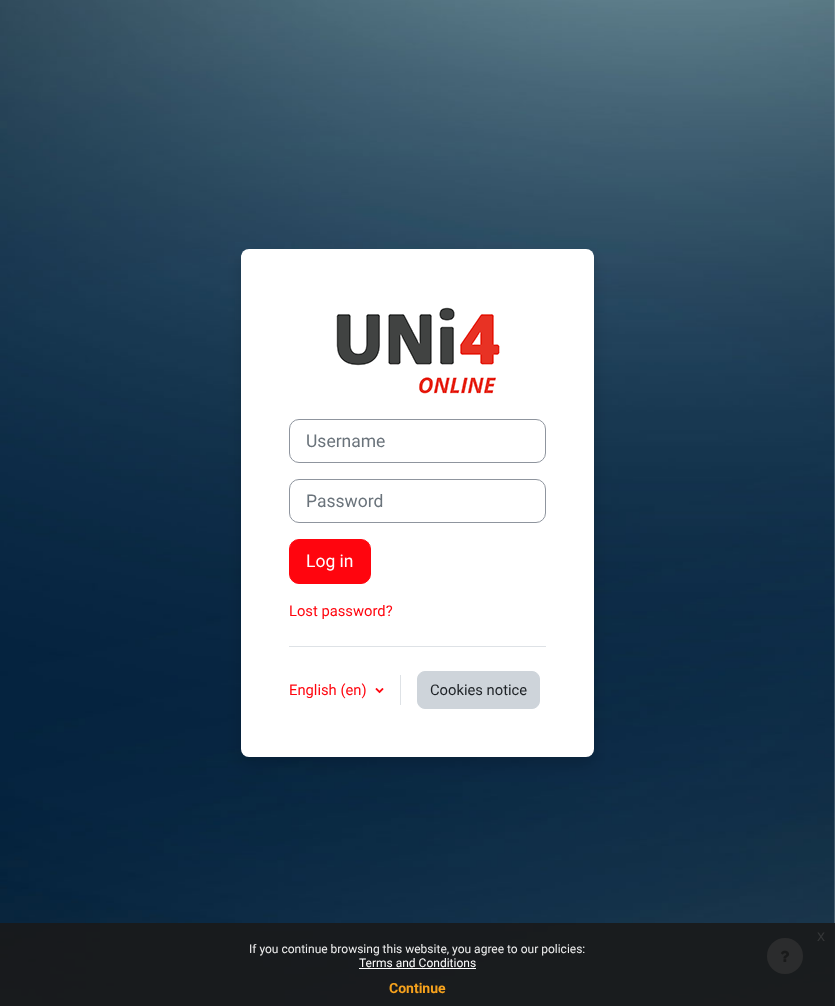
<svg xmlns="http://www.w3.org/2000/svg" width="835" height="1006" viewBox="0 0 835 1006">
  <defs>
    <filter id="blur1" x="-50%" y="-200%" width="200%" height="500%"><feGaussianBlur stdDeviation="8"/></filter>
  </defs>
  <rect width="100%" height="100%" fill="#ffffff"/>
  <image x="0" y="0" width="835" height="1006" href="img1.png"/>
  <rect x="241" y="257" width="353" height="508" rx="8" fill="#000000" fill-opacity="0.15" filter="url(#blur1)"/>
  <rect x="241" y="249" width="353" height="508" rx="8" fill="#ffffff"/>
  <image x="336" y="307" width="164" height="87" href="img2.png"/>
  <rect x="289.5" y="419.5" width="256" height="43" rx="9.5" fill="none" stroke="#8f959e"/>
  <text x="306" y="447" font-family="Roboto" font-size="17.5" fill="#6a737b">Username</text>
  <rect x="289.5" y="479.5" width="256" height="43" rx="9.5" fill="none" stroke="#8f959e"/>
  <text x="306" y="507" font-family="Roboto" font-size="17.5" fill="#6a737b">Password</text>
  <rect x="289.5" y="539.5" width="81" height="44" rx="9.5" fill="#ff050e" stroke="#ff050e"/>
  <text x="306" y="567" font-family="Roboto" font-size="17.5" fill="#ffffff">Log in</text>
  <text x="289" y="616" font-family="Roboto" font-size="14.75" fill="#ff050e">Lost password?</text>
  <rect x="289" y="646" width="257" height="1" fill="#dee2e6"/>
  <text x="289" y="695" font-family="Roboto" font-size="14.75" fill="#ff050e">English (en)</text>
  <image x="375" y="688" width="9" height="6" href="img3.png"/>
  <rect x="400" y="675" width="1" height="30" fill="#dee2e6"/>
  <rect x="417.5" y="671.5" width="122" height="37" rx="7.5" fill="#ced4da" stroke="#ced4da"/>
  <text x="430" y="695" font-family="Roboto" font-size="14.75" fill="#1d2125">Cookies notice</text>
  <circle cx="785" cy="956" r="18" fill="#ced4da"/>
  <image x="780" y="950" width="10" height="12" href="img4.png"/>
  <rect x="0" y="923" width="835" height="83" fill="#191919" fill-opacity="0.9"/>
  <text x="817" y="941" font-family="Liberation Sans" font-size="16" fill="#353738">x</text>
  <text x="249" y="953" font-family="Roboto" font-size="12" fill="#efefef">If you continue browsing this website, you agree to our policies:</text>
  <text x="359" y="967" font-family="Roboto" font-size="12" fill="#ffffff">Terms and Conditions</text>
  <rect x="359" y="968" width="117" height="1" fill="#ffffff"/>
  <text x="389" y="993" font-family="Roboto" font-size="14" font-weight="bold" fill="#f6a21d">Continue</text>
</svg>
